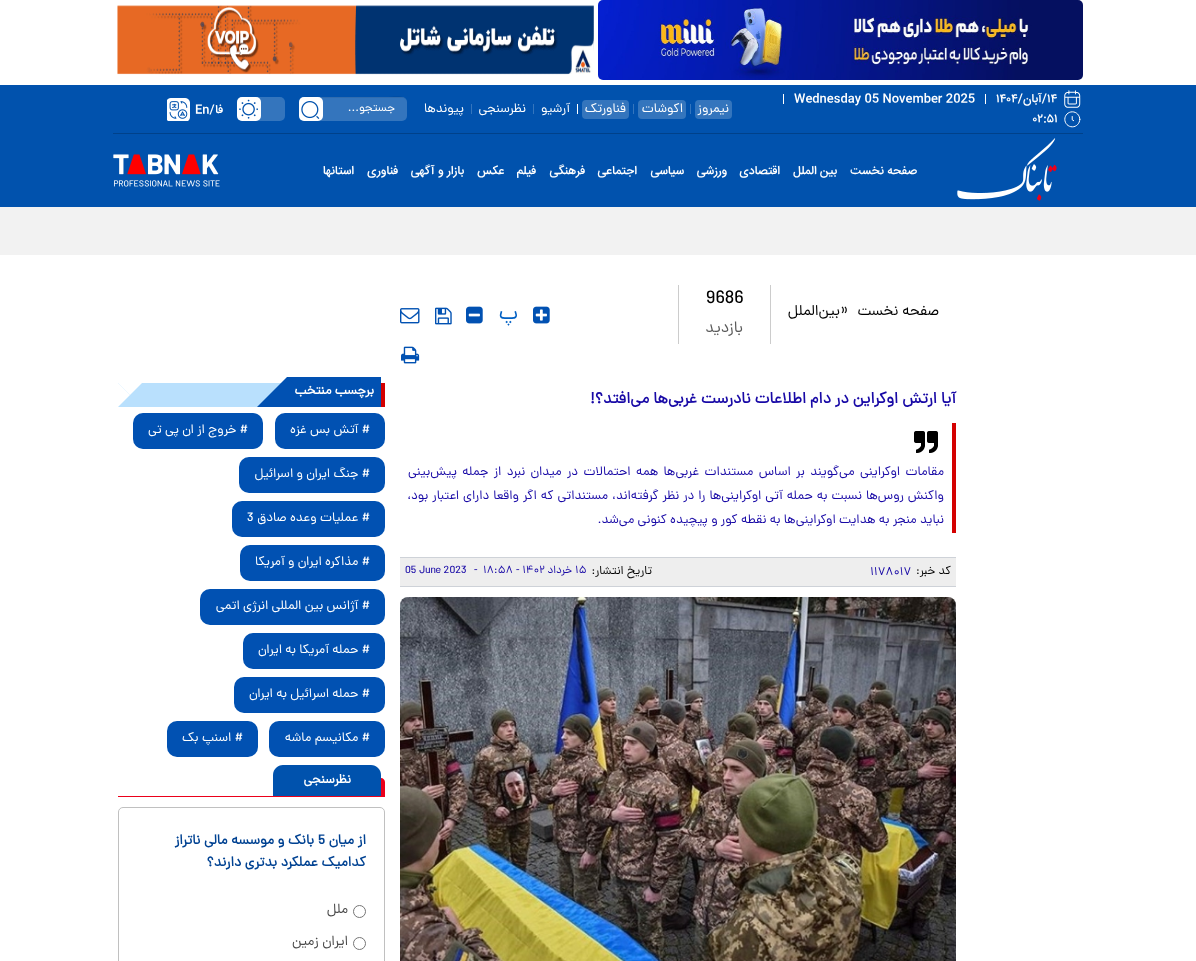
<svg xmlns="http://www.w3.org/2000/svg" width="1196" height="961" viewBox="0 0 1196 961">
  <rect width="100%" height="100%" fill="#ffffff"/>
  <image x="598" y="0" width="485" height="80" href="img1.png"/>
  <image x="117" y="5" width="477" height="70" href="img2.png"/>
  <rect x="0" y="85" width="1196" height="122" fill="#0152ad"/>
  <rect x="113" y="133" width="970" height="1" fill="#00418a"/>
  <image x="1064" y="90" width="17" height="18" href="img3.png"/>
  <text x="1047" y="102" font-family="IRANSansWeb" font-size="12" font-weight="500" fill="#ffffff">۱۴</text>
  <text x="1047" y="102" font-family="IRANSansWeb" font-size="12" font-weight="500" direction="rtl" fill="#ffffff">/آبان/</text>
  <text x="996" y="102" font-family="IRANSansWeb" font-size="12" font-weight="500" fill="#ffffff">۱۴۰۴</text>
  <rect x="985" y="94" width="1" height="10" fill="#ffffff"/>
  <text x="794" y="102" font-family="IRANSansWeb" font-size="12" font-weight="500" fill="#ffffff">Wednesday 05 November 2025</text>
  <rect x="783" y="94" width="1" height="10" fill="#ffffff"/>
  <image x="1064" y="111" width="17" height="17" href="img4.png"/>
  <text x="1033" y="122" font-family="IRANSansWeb" font-size="12" font-weight="500" fill="#ffffff">۰۲:۵۱</text>
  <rect x="695" y="100" width="37" height="19" rx="4" fill="#3475bd"/>
  <text x="729" y="112" font-family="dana" font-size="13" direction="rtl" fill="#ffffff">نیمروز</text>
  <rect x="690" y="104" width="1" height="10" fill="#3475bd"/>
  <rect x="638" y="100" width="48" height="19" rx="4" fill="#3475bd"/>
  <text x="683" y="112" font-family="dana" font-size="13" direction="rtl" fill="#ffffff">اکوشات</text>
  <rect x="633" y="104" width="1" height="10" fill="#3475bd"/>
  <rect x="582" y="100" width="47" height="19" rx="4" fill="#3475bd"/>
  <text x="626" y="112" font-family="dana" font-size="13" direction="rtl" fill="#ffffff">فناورتک</text>
  <rect x="577" y="104" width="1" height="10" fill="#ffffff"/>
  <text x="570" y="112" font-family="dana" font-size="13" direction="rtl" fill="#ffffff">آرشیو</text>
  <rect x="533" y="104" width="1" height="10" fill="#3475bd"/>
  <text x="526" y="112" font-family="dana" font-size="13" direction="rtl" fill="#ffffff">نظرسنجی</text>
  <rect x="471" y="104" width="1" height="10" fill="#3475bd"/>
  <text x="464" y="112" font-family="dana" font-size="13" direction="rtl" fill="#ffffff">پیوندها</text>
  <rect x="299" y="97" width="108" height="24" rx="5" fill="#3475bd"/>
  <path d="M304 98H402C405 98 407 100 407 103C407 93 391 97 386 97H320C315 97 299 93 299 103C299 100 301 98 304 98Z" fill="#000000" fill-opacity="0.07"/>
  <text x="395" y="111" font-family="dana" font-size="12" direction="rtl" fill="#ffffff">جستجو...</text>
  <rect x="299" y="97" width="24" height="24" rx="5" fill="#ffffff"/>
  <image x="301" y="101" width="19" height="18" href="img5.png"/>
  <rect x="237" y="97" width="48" height="24" rx="5" fill="#3475bd"/>
  <rect x="237" y="97" width="24" height="24" rx="5" fill="#ffffff"/>
  <image x="239" y="99" width="19" height="20" href="img6.png"/>
  <text x="223" y="113" font-family="IRANSansWeb" font-size="12" font-weight="500" direction="rtl" fill="#ffffff">فا</text>
  <text x="195" y="113" font-family="IRANSansWeb" font-size="12" font-weight="500" fill="#ffffff">En/</text>
  <image x="167" y="98" width="23" height="23" href="img7.png"/>
  <image x="957" y="138" width="100" height="63" href="img8.png"/>
  <text x="917" y="174" font-family="IRANSansWeb" font-size="12" font-weight="500" direction="rtl" fill="#ffffff">صفحه نخست</text>
  <text x="837" y="174" font-family="IRANSansWeb" font-size="12" font-weight="500" direction="rtl" fill="#ffffff">بین الملل</text>
  <text x="780" y="174" font-family="IRANSansWeb" font-size="12" font-weight="500" direction="rtl" fill="#ffffff">اقتصادی</text>
  <text x="727" y="174" font-family="IRANSansWeb" font-size="12" font-weight="500" direction="rtl" fill="#ffffff">ورزشی</text>
  <text x="684" y="174" font-family="IRANSansWeb" font-size="12" font-weight="500" direction="rtl" fill="#ffffff">سیاسی</text>
  <text x="637" y="174" font-family="IRANSansWeb" font-size="12" font-weight="500" direction="rtl" fill="#ffffff">اجتماعی</text>
  <text x="585" y="174" font-family="IRANSansWeb" font-size="12" font-weight="500" direction="rtl" fill="#ffffff">فرهنگی</text>
  <text x="536" y="174" font-family="IRANSansWeb" font-size="12" font-weight="500" direction="rtl" fill="#ffffff">فیلم</text>
  <text x="504" y="174" font-family="IRANSansWeb" font-size="12" font-weight="500" direction="rtl" fill="#ffffff">عکس</text>
  <text x="464" y="174" font-family="IRANSansWeb" font-size="12" font-weight="500" direction="rtl" fill="#ffffff">بازار و آگهی</text>
  <text x="398" y="174" font-family="IRANSansWeb" font-size="12" font-weight="500" direction="rtl" fill="#ffffff">فناوری</text>
  <text x="354" y="174" font-family="IRANSansWeb" font-size="12" font-weight="500" direction="rtl" fill="#ffffff">استانها</text>
  <image x="113" y="154" width="107" height="33" href="img9.png"/>
  <rect x="0" y="207" width="1196" height="48" fill="#f2f2f2"/>
  <text x="939" y="315" font-family="dana" font-size="15" direction="rtl" fill="#000000">صفحه نخست</text>
  <text x="840" y="315" font-family="dana" font-size="18" fill="#000000">»</text>
  <text x="840" y="315" font-family="dana" font-size="15" direction="rtl" fill="#000000">بین‌الملل</text>
  <rect x="770" y="285" width="1" height="59" fill="#cccccc"/>
  <rect x="678" y="285" width="1" height="59" fill="#cccccc"/>
  <text x="706" y="303" font-family="dana" font-size="19" fill="#000000">9686</text>
  <text x="743" y="332" font-family="dana" font-size="16" direction="rtl" fill="#595959">بازدید</text>
  <image x="533" y="306" width="17" height="18" href="img10.png"/>
  <text x="518" y="319" font-family="dana" font-size="21" direction="rtl" fill="#0060c4">پ</text>
  <image x="466" y="306" width="17" height="18" href="img11.png"/>
  <image x="435" y="307" width="17" height="18" href="img12.png"/>
  <image x="400" y="308" width="20" height="16" href="img13.png"/>
  <image x="401" y="346" width="19" height="18" href="img14.png"/>
  <text x="956" y="403" font-family="dana" font-size="16" font-weight="bold" direction="rtl" fill="#1809a6">آیا ارتش اوکراین در دام اطلاعات نادرست غربی‌ها می‌افتد؟!</text>
  <rect x="952" y="423" width="4" height="110" fill="#d40000"/>
  <image x="914" y="431" width="24" height="22" href="img15.png"/>
  <text x="944" y="475" word-spacing="2.1" font-family="dana" font-size="13" direction="rtl" fill="#1809a6">مقامات اوکراینی می‌گویند بر اساس مستندات غربی‌ها همه احتمالات در میدان نبرد از جمله پیش‌بینی</text>
  <text x="944" y="499" word-spacing="0.6" font-family="dana" font-size="13" direction="rtl" fill="#1809a6">واکنش روس‌ها نسبت به حمله آتی اوکراینی‌ها را در نظر گرفته‌اند، مستنداتی که اگر واقعا دارای اعتبار بود،</text>
  <text x="944" y="523" font-family="dana" font-size="13" direction="rtl" fill="#1809a6">نباید منجر به هدایت اوکراینی‌ها به نقطه کور و پیچیده کنونی می‌شد.</text>
  <rect x="400" y="558" width="556" height="28" fill="#eeeeee"/>
  <rect x="400" y="557" width="556" height="1" fill="#ced2d8"/>
  <rect x="400" y="586" width="556" height="1" fill="#ced2d8"/>
  <text x="951" y="574" font-family="dana" font-size="12" direction="rtl" fill="#000000">کد خبر:</text>
  <text x="870" y="575" font-family="dana" font-size="12" fill="#1809a6">۱۱۷۸۰۱۷</text>
  <text x="652" y="574" font-family="dana" font-size="12" direction="rtl" fill="#000000">تاریخ انتشار:</text>
  <text x="575" y="573" font-family="dana" font-size="11" fill="#1809a6">۱۵</text>
  <text x="572" y="573" font-family="dana" font-size="11" direction="rtl" fill="#1809a6">خرداد</text>
  <text x="483" y="573" font-family="dana" font-size="11" fill="#1809a6">۱۸:۵۸ - ۱۴۰۲</text>
  <text x="474" y="573" font-family="dana" font-size="11" fill="#1809a6">-</text>
  <text x="405" y="573" font-family="dana" font-size="11" fill="#1809a6">05 June 2023</text>
  <image x="400" y="597" width="556" height="364" href="img16.png"/>
  <rect x="118" y="383" width="163" height="24" fill="#b9e0fd"/>
  <rect x="381" y="383" width="4" height="24" fill="#d40000"/>
  <rect x="287" y="377" width="94" height="30" fill="#0151b2"/>
  <path d="M317 407H257L287 377Z" fill="#0151b2"/>
  <text x="374" y="394" font-family="dana" font-size="13" font-weight="bold" direction="rtl" fill="#ffffff">برچسب منتخب</text>
  <path d="M118 383H142L130 395Z" fill="#ffffff"/>
  <path d="M118 407V383L130 395Z" fill="#ffffff"/>
  <rect x="275" y="413" width="110" height="36" rx="10" fill="#0151b2"/>
  <text x="370" y="433" font-family="dana" font-size="13" direction="rtl" fill="#ffffff"># آتش بس غزه</text>
  <rect x="133" y="413" width="130" height="36" rx="10" fill="#0151b2"/>
  <text x="248" y="433" font-family="dana" font-size="13" direction="rtl" fill="#ffffff"># خروج از ان پی تی</text>
  <rect x="239" y="457" width="146" height="36" rx="10" fill="#0151b2"/>
  <text x="370" y="477" font-family="dana" font-size="13" direction="rtl" fill="#ffffff"># جنگ ایران و اسرائیل</text>
  <rect x="232" y="501" width="153" height="36" rx="10" fill="#0151b2"/>
  <text x="370" y="521" font-family="dana" font-size="13" direction="rtl" fill="#ffffff"># عملیات وعده صادق</text>
  <text x="247" y="521" font-family="dana" font-size="13" fill="#ffffff">3</text>
  <rect x="240" y="545" width="145" height="36" rx="10" fill="#0151b2"/>
  <text x="370" y="565" font-family="dana" font-size="13" direction="rtl" fill="#ffffff"># مذاکره ایران و آمریکا</text>
  <rect x="200" y="589" width="185" height="36" rx="10" fill="#0151b2"/>
  <text x="370" y="609" font-family="dana" font-size="13" direction="rtl" fill="#ffffff"># آژانس بین المللی انرژی اتمی</text>
  <rect x="243" y="633" width="142" height="36" rx="10" fill="#0151b2"/>
  <text x="370" y="653" font-family="dana" font-size="13" direction="rtl" fill="#ffffff"># حمله آمریکا به ایران</text>
  <rect x="234" y="677" width="151" height="36" rx="10" fill="#0151b2"/>
  <text x="370" y="697" font-family="dana" font-size="13" direction="rtl" fill="#ffffff"># حمله اسرائیل به ایران</text>
  <rect x="269" y="721" width="116" height="36" rx="10" fill="#0151b2"/>
  <text x="370" y="741" font-family="dana" font-size="13" direction="rtl" fill="#ffffff"># مکانیسم ماشه</text>
  <rect x="167" y="721" width="91" height="36" rx="10" fill="#0151b2"/>
  <text x="243" y="741" font-family="dana" font-size="13" direction="rtl" fill="#ffffff"># اسنپ بک</text>
  <rect x="118" y="796" width="267" height="1" fill="#eb001a"/>
  <path d="M283 765H371C376.5 765 381 769.5 381 775V796H273V775C273 769.5 277.5 765 283 765Z" fill="#0052ad"/>
  <path d="M381 778C383 778 385 780 385 782V796H381Z" fill="#eb001a"/>
  <text x="351" y="783" font-family="dana" font-size="13" font-weight="bold" direction="rtl" fill="#ffffff">نظرسنجی</text>
  <rect x="118.5" y="807.5" width="266" height="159" rx="4.5" fill="none" stroke="#c0c0c0"/>
  <text x="366" y="844" font-family="dana" font-size="14" font-weight="bold" direction="rtl" fill="#004292">از میان</text>
  <text x="318" y="844" font-family="dana" font-size="14" font-weight="bold" fill="#004292">5</text>
  <text x="314" y="844" font-family="dana" font-size="14" font-weight="bold" direction="rtl" fill="#004292">بانک و موسسه مالی ناتراز</text>
  <text x="366" y="866" font-family="dana" font-size="14" font-weight="bold" direction="rtl" fill="#004292">کدامیک عملکرد بدتری دارند؟</text>
  <circle cx="359.5" cy="911.5" r="6" fill="none" stroke="#767676"/>
  <text x="348" y="913" font-family="dana" font-size="14" direction="rtl" fill="#4a4a4a">ملل</text>
  <circle cx="359.5" cy="943.5" r="6" fill="none" stroke="#767676"/>
  <text x="348" y="945" font-family="dana" font-size="14" direction="rtl" fill="#4a4a4a">ایران زمین</text>
</svg>
